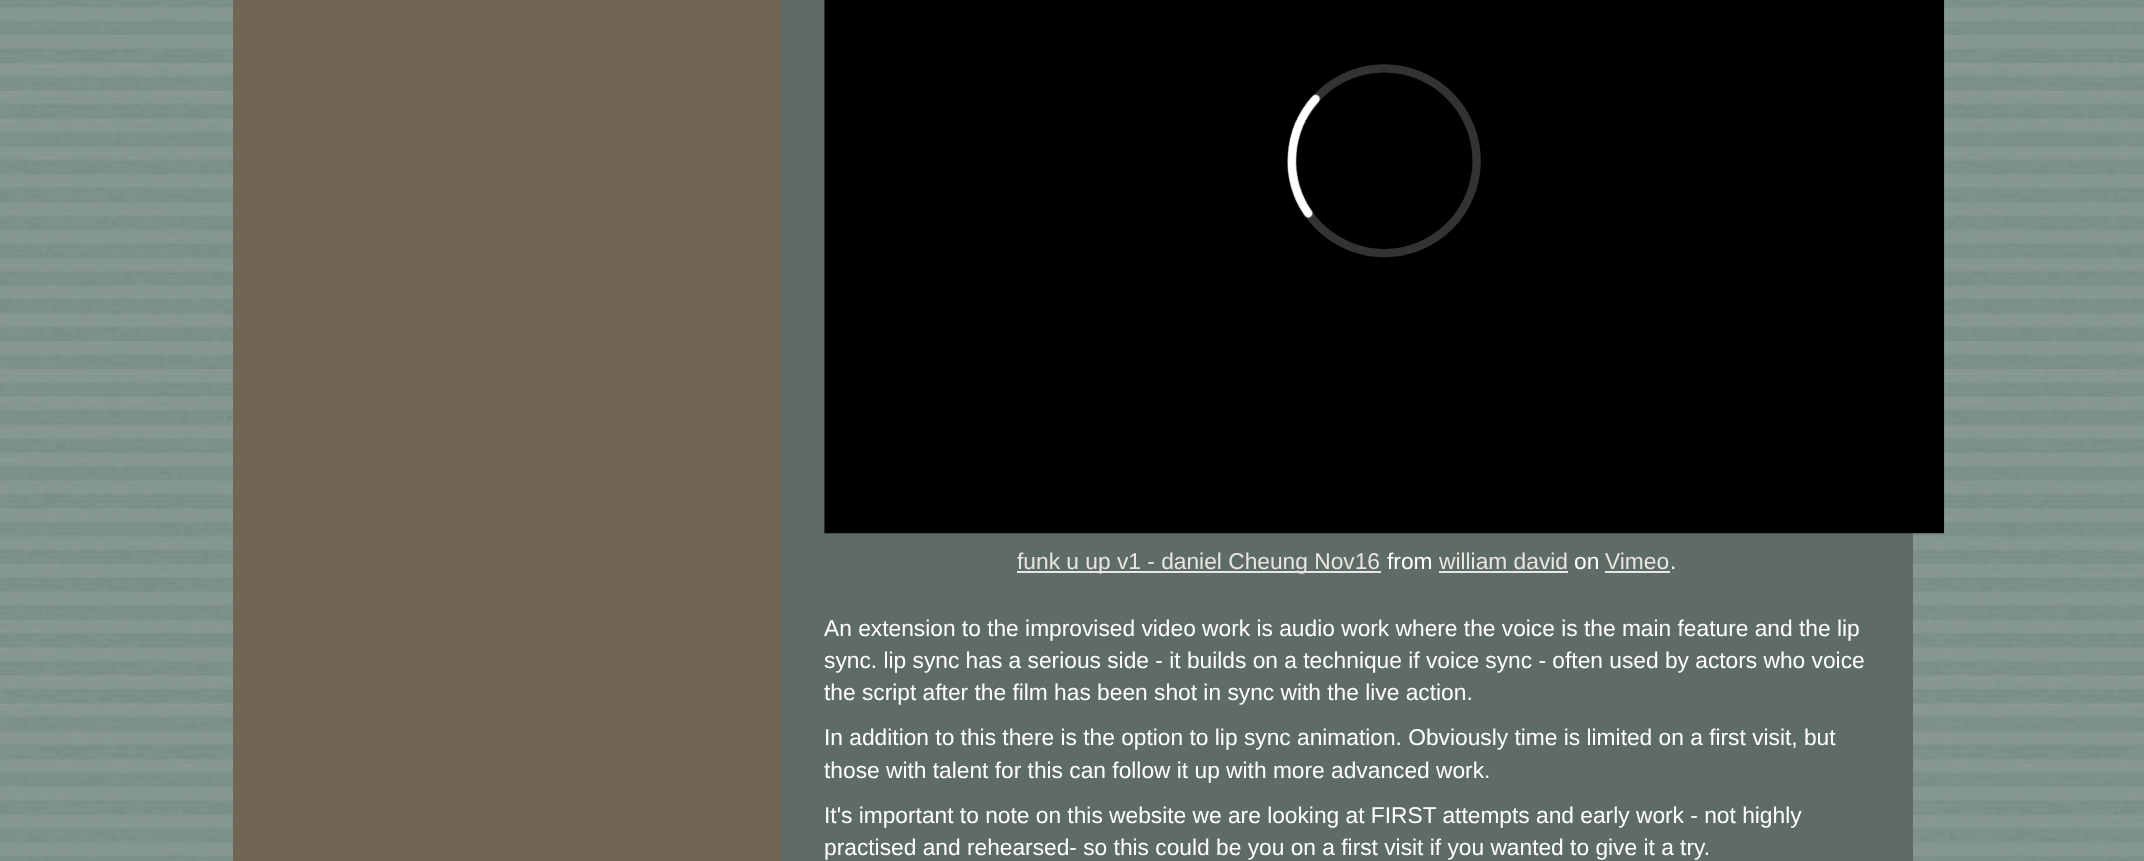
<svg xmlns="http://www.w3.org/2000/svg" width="2144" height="861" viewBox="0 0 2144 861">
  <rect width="100%" height="100%" fill="#7d908a"/>
  <image x="0" y="2" width="2144" height="859" href="img1.png"/>
  <rect x="233" y="0" width="548" height="861" fill="#716656"/>
  <rect x="781" y="0" width="1132" height="861" fill="#5f6b67"/>
  <image x="824" y="0" width="1121" height="534" href="img2.png"/>
  <rect x="1017" y="571" width="364" height="2" fill="#e8e6e0"/>
  <text x="1017" y="569" font-family="Liberation Sans" font-size="22.75" fill="#e8e6e0">funk u up v1 - daniel Cheung Nov16</text>
  <text x="1387" y="569" font-family="Liberation Sans" font-size="22.75" fill="#ffffff">from</text>
  <text x="1439" y="569" font-family="Liberation Sans" font-size="22.75" fill="#e8e6e0">william david</text>
  <rect x="1439" y="571" width="129" height="2" fill="#e8e6e0"/>
  <text x="1574" y="569" font-family="Liberation Sans" font-size="22.75" fill="#ffffff">on</text>
  <text x="1605" y="569" font-family="Liberation Sans" font-size="22.75" fill="#e8e6e0">Vimeo</text>
  <rect x="1605" y="571" width="65" height="2" fill="#e8e6e0"/>
  <text x="1670" y="569" font-family="Liberation Sans" font-size="22.75" fill="#ffffff">.</text>
  <text x="824" y="636" font-family="Liberation Sans" font-size="22.75" fill="#ffffff">An extension to the improvised video work is audio work where the voice is the main feature and the lip</text>
  <text x="824" y="668" font-family="Liberation Sans" font-size="22.75" fill="#ffffff">sync. lip sync has a serious side - it builds on a technique if voice sync - often used by actors who voice</text>
  <text x="824" y="700" font-family="Liberation Sans" font-size="22.75" fill="#ffffff">the script after the film has been shot in sync with the live action.</text>
  <text x="824" y="745" font-family="Liberation Sans" font-size="22.75" fill="#ffffff">In addition to this there is the option to lip sync animation. Obviously time is limited on a first visit, but</text>
  <text x="824" y="778" font-family="Liberation Sans" font-size="22.75" fill="#ffffff">those with talent for this can follow it up with more advanced work.</text>
  <text x="824" y="823" font-family="Liberation Sans" font-size="22.75" fill="#ffffff">It's important to note on this website we are looking at FIRST attempts and early work - not highly</text>
  <text x="824" y="855" font-family="Liberation Sans" font-size="22.75" fill="#ffffff">practised and rehearsed- so this could be you on a first visit if you wanted to give it a try.</text>
</svg>
